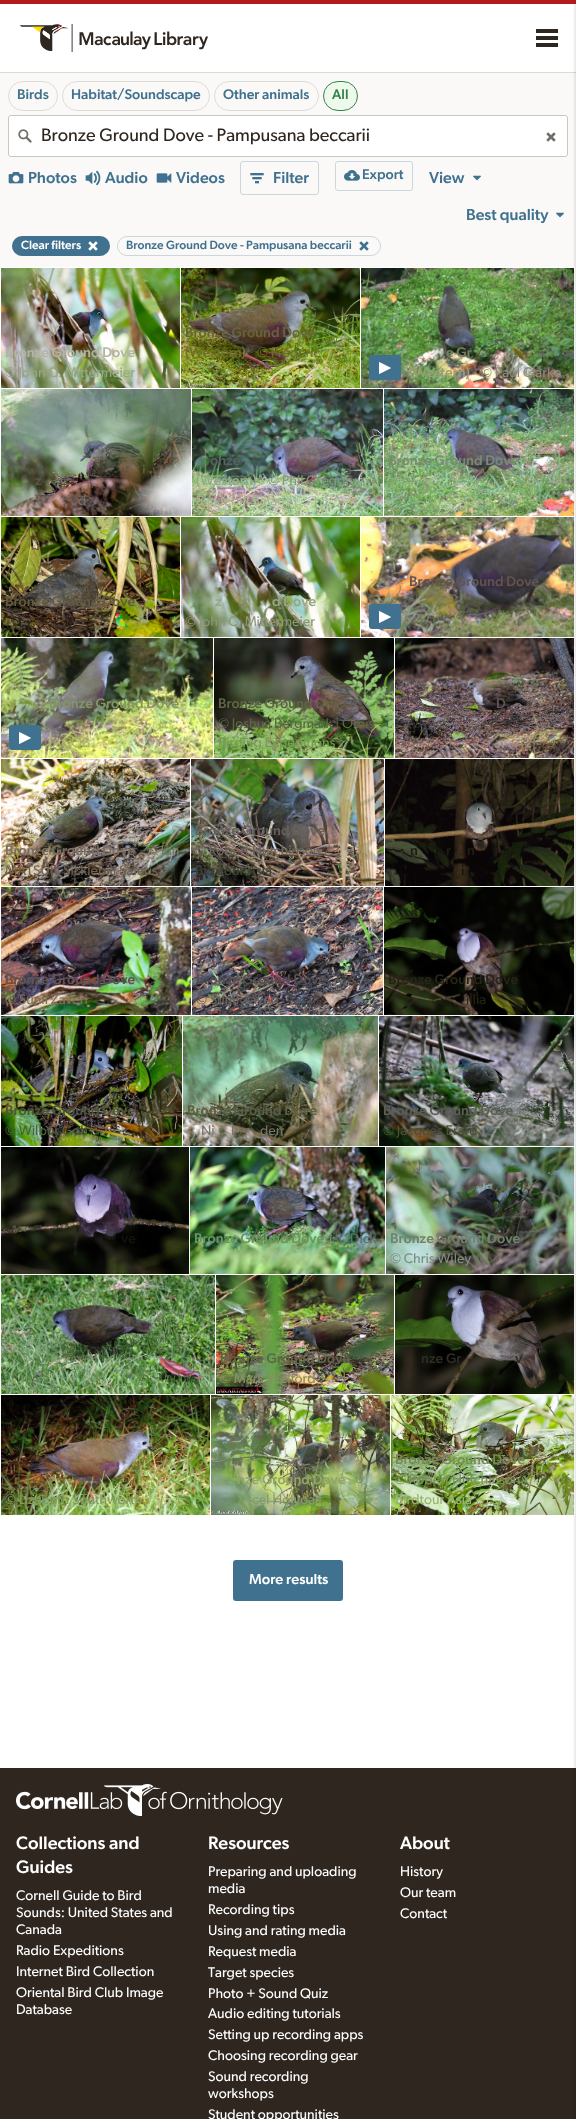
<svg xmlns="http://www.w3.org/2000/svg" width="576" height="2119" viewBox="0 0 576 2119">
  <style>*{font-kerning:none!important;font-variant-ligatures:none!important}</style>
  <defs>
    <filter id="blur1" x="-50%" y="-200%" width="200%" height="500%"><feGaussianBlur stdDeviation="2"/></filter>
  </defs>
  <rect width="100%" height="100%" fill="#ffffff"/>
  <rect x="0" y="0" width="576" height="4" fill="#b31b1b"/>
  <rect x="0" y="72" width="576" height="1" fill="#dbdbd9"/>
  <image x="20" y="24" width="188" height="28" href="img1.png"/>
  <image x="536" y="29" width="22" height="18" href="img2.png"/>
  <rect x="0" y="73" width="576" height="194" fill="#faf9f7"/>
  <image x="361" y="268" width="213" height="120" href="img15.png"/>
  <image x="384" y="389" width="190" height="127" href="img19.png"/>
  <image x="361" y="517" width="213" height="120" href="img20.png"/>
  <image x="395" y="638" width="179" height="120" href="img25.png"/>
  <image x="385" y="759" width="189" height="127" href="img28.png"/>
  <image x="384" y="887" width="190" height="128" href="img31.png"/>
  <image x="379" y="1016" width="195" height="130" href="img34.png"/>
  <image x="386" y="1147" width="188" height="127" href="img37.png"/>
  <image x="395" y="1275" width="179" height="119" href="img40.png"/>
  <image x="391" y="1395" width="183" height="120" href="img43.png"/>
  <rect x="0" y="1768" width="576" height="351" fill="#2e261f"/>
  <rect x="576" y="2" width="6" height="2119" fill="#000000" fill-opacity="0.2" filter="url(#blur1)"/>
  <rect x="8.5" y="81.5" width="49" height="29" rx="14.5" fill="none" stroke="#dddcd5"/>
  <text x="17" y="99" font-family="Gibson" font-size="14" font-weight="500" fill="#40718f">Birds</text>
  <rect x="62.5" y="81.5" width="147" height="29" rx="14.5" fill="none" stroke="#dddcd5"/>
  <text x="71" y="99" font-family="Gibson" font-size="14" font-weight="500" fill="#40718f">Habitat/Soundscape</text>
  <rect x="214.5" y="81.5" width="104" height="29" rx="14.5" fill="none" stroke="#dddcd5"/>
  <text x="223" y="99" font-family="Gibson" font-size="14" font-weight="500" fill="#40718f">Other animals</text>
  <rect x="323.5" y="81.5" width="34" height="29" rx="14.5" fill="#ecf9eb" stroke="#36824b"/>
  <text x="332" y="99" font-family="Gibson" font-size="14" font-weight="500" fill="#36824b">All</text>
  <rect x="8.5" y="115.5" width="559" height="41" rx="2.5" fill="#ffffff" stroke="#c8c7c0"/>
  <image x="18" y="129" width="14" height="14" href="img3.png"/>
  <text x="41" y="141" font-family="Gibson" font-size="18.1" fill="#2e261f">Bronze Ground Dove - Pampusana beccarii</text>
  <image x="546" y="132" width="10" height="10" href="img4.png"/>
  <image x="8" y="172" width="16" height="12" href="img5.png"/>
  <text x="28" y="183" font-family="Gibson" font-size="16" font-weight="500" fill="#40718f">Photos</text>
  <image x="85" y="170" width="16" height="16" href="img6.png"/>
  <text x="105" y="183" font-family="Gibson" font-size="16" font-weight="500" fill="#40718f">Audio</text>
  <image x="156" y="173" width="16" height="10" href="img7.png"/>
  <text x="176" y="183" font-family="Gibson" font-size="16" font-weight="500" fill="#40718f">Videos</text>
  <rect x="240.5" y="161.5" width="78" height="33" rx="2.5" fill="none" stroke="#ccd7dd"/>
  <image x="250" y="173" width="14" height="11" href="img8.png"/>
  <text x="273" y="183" font-family="Gibson" font-size="16" font-weight="500" fill="#40718f">Filter</text>
  <rect x="335.5" y="161.5" width="77" height="29" rx="2.5" fill="none" stroke="#ccd7dd"/>
  <image x="344" y="170" width="16" height="11" href="img9.png"/>
  <text x="362" y="179" font-family="Gibson" font-size="14" font-weight="500" fill="#40718f">Export</text>
  <text x="429" y="183" font-family="Gibson" font-size="16" font-weight="500" fill="#40718f">View</text>
  <image x="473" y="175" width="8" height="6" href="img10.png"/>
  <text x="466" y="220" font-family="Gibson" font-size="16" font-weight="500" fill="#40718f">Best quality</text>
  <image x="556" y="212" width="8" height="6" href="img10.png"/>
  <rect x="12" y="236" width="98" height="20" rx="10" fill="#40718f"/>
  <text x="21" y="249" font-family="Gibson" font-size="12" font-weight="500" fill="#ffffff">Clear filters</text>
  <image x="88" y="241" width="10" height="10" href="img11.png"/>
  <rect x="117.5" y="236.5" width="263" height="19" rx="9.5" fill="none" stroke="#ccd7dd"/>
  <text x="126" y="249" font-family="Gibson" font-size="12" font-weight="500" fill="#40718f">Bronze Ground Dove - Pampusana beccarii</text>
  <image x="359" y="241" width="10" height="10" href="img12.png"/>
  <image x="181" y="268" width="179" height="120" href="img13.png"/>
  <text x="185" y="337" font-family="Gibson" font-size="14" font-weight="500" fill="#67633a">Bronze Ground Dove</text>
  <text x="185" y="357" font-family="Gibson" font-size="14" font-weight="500" fill="#6d7223">(Western)</text>
  <text x="257" y="357" font-family="Gibson" font-size="14" fill="#6d7223">© Frédéric</text>
  <image x="1" y="268" width="179" height="120" href="img14.png"/>
  <text x="5" y="357" font-family="Gibson" font-size="14" font-weight="500" fill="#b2b5a2">Bronze Ground Dove</text>
  <text x="5" y="377" font-family="Gibson" font-size="14" fill="#96a784">© John C. Mittermeier</text>
  <rect x="369" y="355" width="32" height="25" rx="3" fill="#40718f"/>
  <image x="379" y="362" width="12" height="12" href="img16.png"/>
  <text x="446" y="357" font-family="Gibson" font-size="14" font-weight="500" fill="#72815c">e Gr</text>
  <text x="409" y="377" font-family="Gibson" font-size="14" font-weight="500" fill="#94a06e">(Western)</text>
  <text x="481" y="377" font-family="Gibson" font-size="14" fill="#908b79">© Paul Clarke</text>
  <image x="1" y="389" width="190" height="127" href="img17.png"/>
  <text x="35" y="485" font-family="Gibson" font-size="14" font-weight="500" fill="#5f5644">z</text>
  <text x="78" y="505" font-family="Gibson" font-size="14" fill="#7a6e64">d</text>
  <image x="192" y="389" width="191" height="127" href="img18.png"/>
  <text x="210" y="465" font-family="Gibson" font-size="14" font-weight="500" fill="#576263">onze</text>
  <text x="196" y="485" font-family="Gibson" font-size="14" font-weight="500" fill="#92ad86">(Western)</text>
  <text x="268" y="485" font-family="Gibson" font-size="14" fill="#82987e">© Phil Gregory |</text>
  <text x="196" y="505" font-family="Gibson" font-size="14" fill="#abb394">Sicklebill Safaris |…</text>
  <text x="388" y="465" font-family="Gibson" font-size="14" font-weight="500" fill="#778d71">Bronze Ground Dove</text>
  <text x="409" y="586" font-family="Gibson" font-size="14" font-weight="500" fill="#625451">Bronze Ground Dove</text>
  <rect x="369" y="604" width="32" height="25" rx="3" fill="#40718f"/>
  <image x="379" y="611" width="12" height="12" href="img16.png"/>
  <image x="1" y="517" width="179" height="120" href="img21.png"/>
  <text x="5" y="606" font-family="Gibson" font-size="14" font-weight="500" fill="#625b3d">Bronze Ground Dove</text>
  <text x="113" y="626" font-family="Noto Color Emoji" font-size="14" fill="#737a17">🦜</text>
  <image x="181" y="517" width="179" height="120" href="img22.png"/>
  <text x="215" y="606" font-family="Gibson" font-size="14" font-weight="500" fill="#96a784">z</text>
  <text x="272" y="606" font-family="Gibson" font-size="14" font-weight="500" fill="#96a784">d Dove</text>
  <text x="185" y="626" font-family="Gibson" font-size="14" fill="#8b9677">© John C. Mittermeier</text>
  <image x="1" y="638" width="212" height="120" href="img23.png"/>
  <rect x="9" y="725" width="32" height="25" rx="3" fill="#40718f"/>
  <image x="19" y="732" width="12" height="12" href="img16.png"/>
  <text x="49" y="708" font-family="Gibson" font-size="14" font-weight="500" fill="#859366">Bronze Ground Dove</text>
  <text x="152" y="728" font-family="Gibson" font-size="14" fill="#c4cd77">r</text>
  <text x="49" y="747" font-family="Gibson" font-size="14" fill="#adb06b">JACOB</text>
  <image x="214" y="638" width="180" height="120" href="img24.png"/>
  <text x="218" y="708" font-family="Gibson" font-size="14" font-weight="500" fill="#606547">Bronze Ground Dov</text>
  <text x="218" y="728" font-family="Gibson" font-size="14" fill="#5a6941">© Joshua Bergmark | Ornis</text>
  <text x="218" y="747" font-family="Gibson" font-size="14" fill="#779c53">Birding Expeditions</text>
  <text x="496" y="708" font-family="Gibson" font-size="14" font-weight="500" fill="#625451">D</text>
  <image x="1" y="759" width="189" height="127" href="img26.png"/>
  <text x="5" y="855" font-family="Gibson" font-size="14" font-weight="500" fill="#7a6e64">Bronze Ground Dove</text>
  <text x="147" y="855" font-family="Gibson" font-size="14" fill="#727b64">© Jun</text>
  <text x="5" y="875" font-family="Gibson" font-size="14" fill="#6e6254">MATSUI | Sicklebill Safaris</text>
  <image x="191" y="759" width="193" height="127" href="img27.png"/>
  <text x="195" y="835" font-family="Gibson" font-size="14" font-weight="500" fill="#67615c">Bronze Ground Dove</text>
  <text x="195" y="855" font-family="Gibson" font-size="14" fill="#70655b">© Robert Hutchinson /</text>
  <text x="195" y="875" font-family="Gibson" font-size="14" fill="#444338">Birdtour Asia</text>
  <text x="410" y="855" font-family="Gibson" font-size="14" font-weight="500" fill="#1f1e15">n</text>
  <text x="446" y="855" font-family="Gibson" font-size="14" font-weight="500" fill="#1f1e15">r</text>
  <text x="467" y="855" font-family="Gibson" font-size="14" font-weight="500" fill="#1f1e15">n</text>
  <text x="461" y="875" font-family="Gibson" font-size="14" fill="#15120d">i</text>
  <image x="1" y="887" width="190" height="128" href="img29.png"/>
  <text x="5" y="984" font-family="Gibson" font-size="14" font-weight="500" fill="#625451">Bronze Ground Dove</text>
  <text x="5" y="1004" font-family="Gibson" font-size="14" fill="#7e735a">© Sunil Zaveri</text>
  <image x="192" y="887" width="191" height="128" href="img30.png"/>
  <text x="196" y="984" font-family="Gibson" font-size="14" font-weight="500" fill="#554e52">Bronze Ground Dove</text>
  <text x="196" y="1004" font-family="Gibson" font-size="14" fill="#67615c">© Sunil Zaveri</text>
  <text x="388" y="984" font-family="Gibson" font-size="14" font-weight="500" fill="#27241a">Bronze Ground Dove</text>
  <text x="466" y="1004" font-family="Gibson" font-size="14" fill="#242514">illia</text>
  <image x="1" y="1016" width="181" height="130" href="img32.png"/>
  <text x="5" y="1115" font-family="Gibson" font-size="14" font-weight="500" fill="#4e5438">Bronze Ground Dove</text>
  <text x="5" y="1135" font-family="Gibson" font-size="14" fill="#496236">© Wilbur Goh</text>
  <image x="183" y="1016" width="195" height="130" href="img33.png"/>
  <text x="187" y="1115" font-family="Gibson" font-size="14" font-weight="500" fill="#5a5f45">Bronze Ground Dove</text>
  <text x="201" y="1135" font-family="Gibson" font-size="14" fill="#7a7769">Ni</text>
  <text x="231" y="1135" font-family="Gibson" font-size="14" fill="#7a7769">l</text>
  <text x="260" y="1135" font-family="Gibson" font-size="14" fill="#7a7769">den</text>
  <text x="383" y="1115" font-family="Gibson" font-size="14" font-weight="500" fill="#5a5e56">Bronze Ground Dove</text>
  <text x="383" y="1135" font-family="Gibson" font-size="14" fill="#4d4e38">© Jacques Erard</text>
  <image x="1" y="1147" width="188" height="127" href="img35.png"/>
  <text x="121" y="1243" font-family="Gibson" font-size="14" font-weight="500" fill="#15120d">ve</text>
  <image x="190" y="1147" width="195" height="127" href="img36.png"/>
  <text x="194" y="1243" font-family="Gibson" font-size="14" font-weight="500" fill="#689561">Bronze Ground Dove</text>
  <text x="336" y="1243" font-family="Gibson" font-size="14" fill="#597468">© Dick</text>
  <text x="390" y="1243" font-family="Gibson" font-size="14" font-weight="500" fill="#70816e">Bronze Ground Dove</text>
  <text x="390" y="1263" font-family="Gibson" font-size="14" fill="#7c8c83">© Chris Wiley</text>
  <image x="1" y="1275" width="214" height="119" href="img38.png"/>
  <image x="216" y="1275" width="178" height="119" href="img39.png"/>
  <text x="220" y="1363" font-family="Gibson" font-size="14" font-weight="500" fill="#606547">Bronze Ground Dove</text>
  <text x="220" y="1383" font-family="Gibson" font-size="14" fill="#88905d">© Mark Welford</text>
  <text x="421" y="1363" font-family="Gibson" font-size="14" font-weight="500" fill="#2f2c26">nze Gr</text>
  <text x="515" y="1363" font-family="Gibson" font-size="14" font-weight="500" fill="#2f2c26">v</text>
  <image x="1" y="1395" width="209" height="120" href="img41.png"/>
  <text x="14" y="1484" font-family="Gibson" font-size="14" font-weight="500" fill="#6f623a">r</text>
  <text x="62" y="1484" font-family="Gibson" font-size="14" font-weight="500" fill="#6f623a">r</text>
  <text x="5" y="1504" font-family="Gibson" font-size="14" fill="#849a5b">© Lizabeth Southworth</text>
  <image x="211" y="1395" width="179" height="120" href="img42.png"/>
  <text x="237" y="1484" font-family="Gibson" font-size="14" font-weight="500" fill="#92a669">nze Ground Dove</text>
  <text x="252" y="1504" font-family="Gibson" font-size="14" fill="#859b6a">cel Holyoak</text>
  <text x="395" y="1464" font-family="Gibson" font-size="14" font-weight="500" fill="#798b5a">Bronze Ground Dove</text>
  <text x="395" y="1484" font-family="Gibson" font-size="14" fill="#7b925a">© Robert Hutchinson /</text>
  <text x="395" y="1504" font-family="Gibson" font-size="14" fill="#99b471">Birdtour Asia</text>
  <rect x="233" y="1560" width="110" height="41" rx="3" fill="#40718f"/>
  <text x="249" y="1584" font-family="Gibson" font-size="14.5" font-weight="500" fill="#ffffff">More results</text>
  <image x="16" y="1784" width="267" height="32" href="img44.png"/>
  <text x="16" y="1849" font-family="Gibson" font-size="18.1" font-weight="500" fill="#ffffff">Collections and</text>
  <text x="16" y="1873" font-family="Gibson" font-size="18.1" font-weight="500" fill="#ffffff">Guides</text>
  <text x="16" y="1900" font-family="Gibson" font-size="14" fill="#ffffff">Cornell Guide to Bird</text>
  <text x="16" y="1917" font-family="Gibson" font-size="14" fill="#ffffff">Sounds: United States and</text>
  <text x="16" y="1934" font-family="Gibson" font-size="14" fill="#ffffff">Canada</text>
  <text x="16" y="1955" font-family="Gibson" font-size="14" fill="#ffffff">Radio Expeditions</text>
  <text x="16" y="1976" font-family="Gibson" font-size="14" fill="#ffffff">Internet Bird Collection</text>
  <text x="16" y="1997" font-family="Gibson" font-size="14" fill="#ffffff">Oriental Bird Club Image</text>
  <text x="16" y="2014" font-family="Gibson" font-size="14" fill="#ffffff">Database</text>
  <text x="208" y="1849" font-family="Gibson" font-size="18.1" font-weight="500" fill="#ffffff">Resources</text>
  <text x="208" y="1876" font-family="Gibson" font-size="14" fill="#ffffff">Preparing and uploading</text>
  <text x="208" y="1893" font-family="Gibson" font-size="14" fill="#ffffff">media</text>
  <text x="208" y="1914" font-family="Gibson" font-size="14" fill="#ffffff">Recording tips</text>
  <text x="208" y="1935" font-family="Gibson" font-size="14" fill="#ffffff">Using and rating media</text>
  <text x="208" y="1956" font-family="Gibson" font-size="14" fill="#ffffff">Request media</text>
  <text x="208" y="1977" font-family="Gibson" font-size="14" fill="#ffffff">Target species</text>
  <text x="208" y="1998" font-family="Gibson" font-size="14" fill="#ffffff">Photo + Sound Quiz</text>
  <text x="208" y="2018" font-family="Gibson" font-size="14" fill="#ffffff">Audio editing tutorials</text>
  <text x="208" y="2039" font-family="Gibson" font-size="14" fill="#ffffff">Setting up recording apps</text>
  <text x="208" y="2060" font-family="Gibson" font-size="14" fill="#ffffff">Choosing recording gear</text>
  <text x="208" y="2081" font-family="Gibson" font-size="14" fill="#ffffff">Sound recording</text>
  <text x="208" y="2098" font-family="Gibson" font-size="14" fill="#ffffff">workshops</text>
  <text x="208" y="2119" font-family="Gibson" font-size="14" fill="#ffffff">Student opportunities</text>
  <text x="400" y="1849" font-family="Gibson" font-size="18.1" font-weight="500" fill="#ffffff">About</text>
  <text x="400" y="1876" font-family="Gibson" font-size="14" fill="#ffffff">History</text>
  <text x="400" y="1897" font-family="Gibson" font-size="14" fill="#ffffff">Our team</text>
  <text x="400" y="1918" font-family="Gibson" font-size="14" fill="#ffffff">Contact</text>
</svg>
